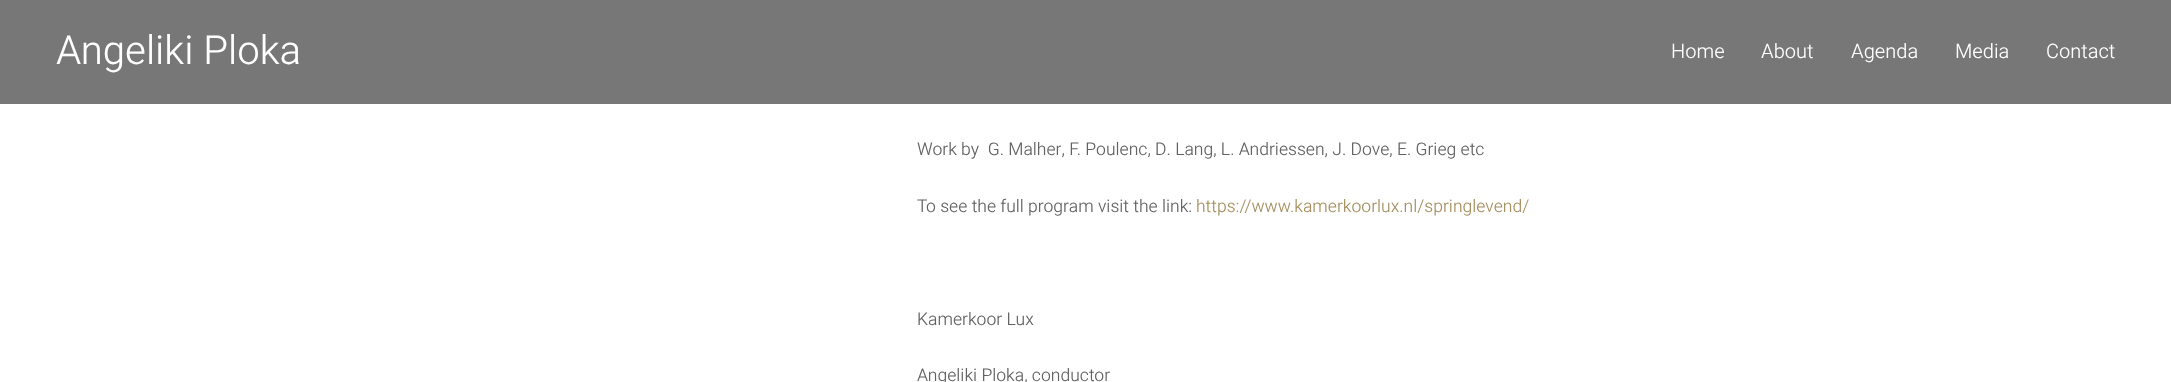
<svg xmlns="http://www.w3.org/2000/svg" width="2171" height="382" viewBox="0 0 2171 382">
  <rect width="100%" height="100%" fill="#ffffff"/>
  <rect x="0" y="0" width="2171" height="104" fill="#777777"/>
  <text x="56" y="64" font-family="Heebo" font-size="40" font-weight="300" fill="#ffffff">Angeliki Ploka</text>
  <text x="1671" y="58" font-family="Heebo" font-size="20" font-weight="300" fill="#ffffff">Home</text>
  <text x="1761" y="58" font-family="Heebo" font-size="20" font-weight="300" fill="#ffffff">About</text>
  <text x="1851" y="58" font-family="Heebo" font-size="20" font-weight="300" fill="#ffffff">Agenda</text>
  <text x="1955" y="58" font-family="Heebo" font-size="20" font-weight="300" fill="#ffffff">Media</text>
  <text x="2046" y="58" font-family="Heebo" font-size="20" font-weight="300" fill="#ffffff">Contact</text>
  <text x="917" y="155" font-family="Heebo" font-size="17.5" font-weight="300" fill="#616161" xml:space="preserve">Work by  G. Malher, F. Poulenc, D. Lang, L. Andriessen, J. Dove, E. Grieg etc</text>
  <text x="917" y="212" font-family="Heebo" font-size="17.5" font-weight="300" fill="#616161">To see the full program visit the link:</text>
  <text x="1196" y="212" font-family="Heebo" font-size="17.5" font-weight="300" fill="#a58f60">https://www.kamerkoorlux.nl/springlevend/</text>
  <text x="917" y="325" font-family="Heebo" font-size="17.5" font-weight="300" fill="#616161">Kamerkoor Lux</text>
  <text x="917" y="381" font-family="Heebo" font-size="17.5" font-weight="300" fill="#616161">Angeliki Ploka, conductor</text>
</svg>
